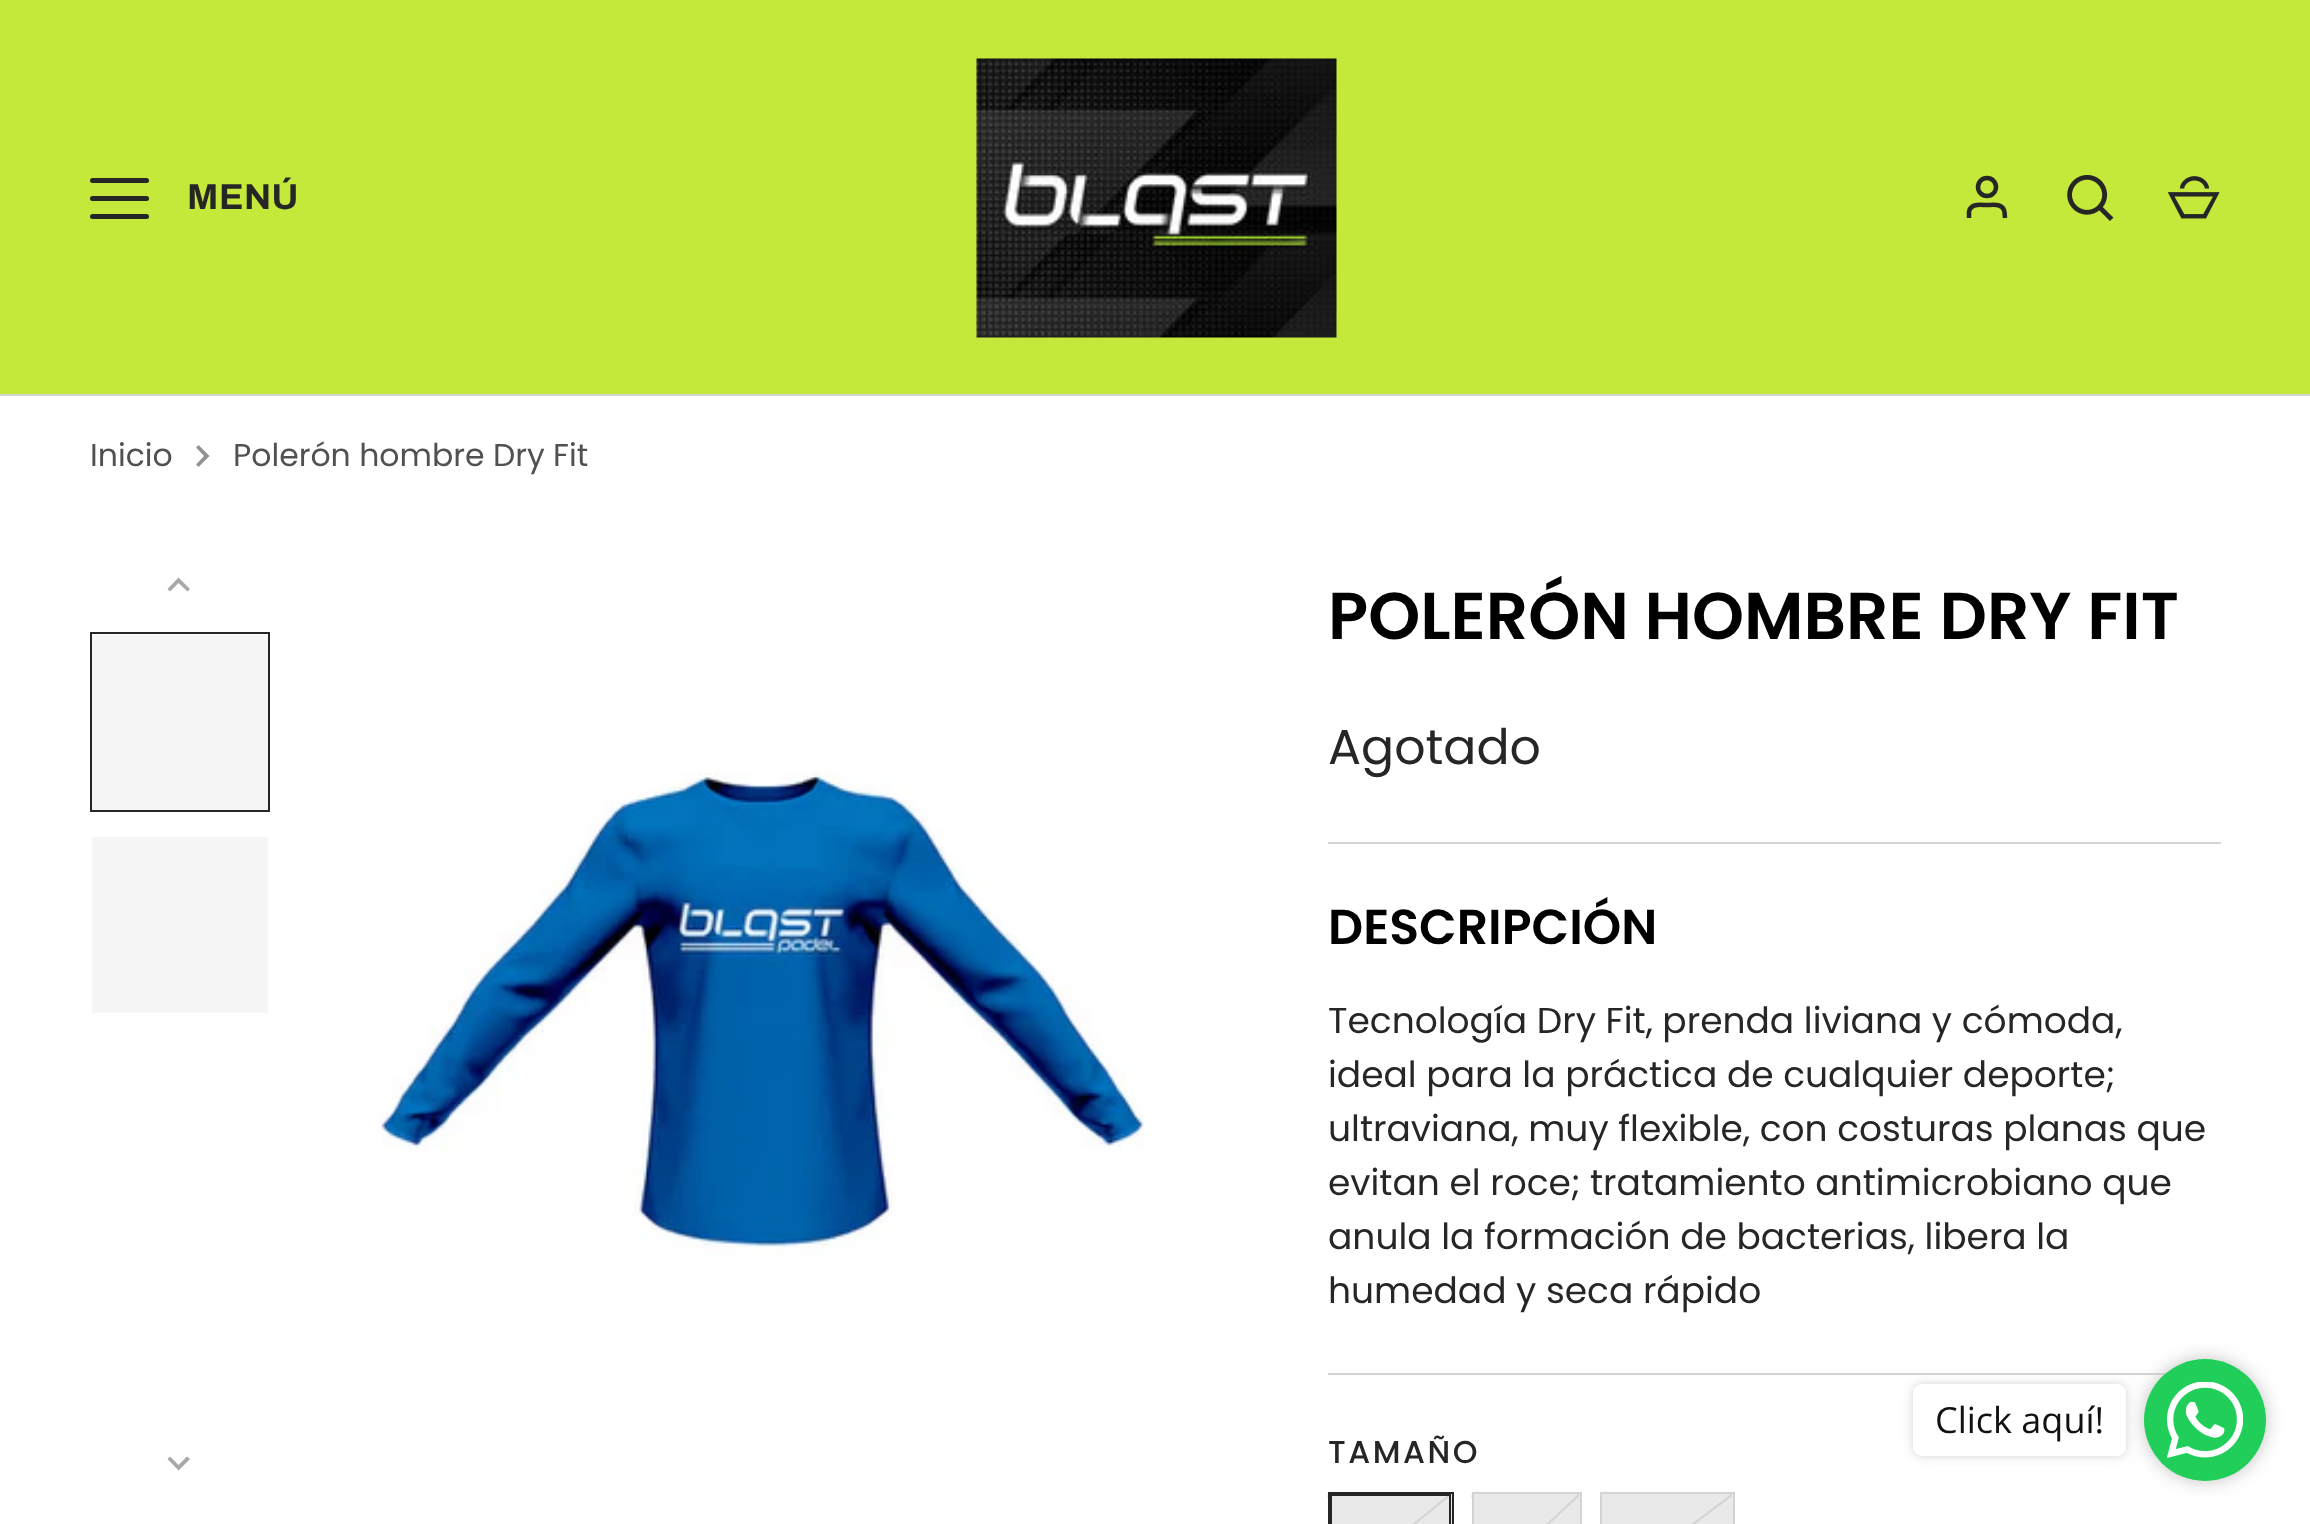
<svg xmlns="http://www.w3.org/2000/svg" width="2310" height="1524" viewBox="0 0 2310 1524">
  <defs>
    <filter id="blur1" x="-50%" y="-200%" width="200%" height="500%"><feGaussianBlur stdDeviation="5.5"/></filter>
    <filter id="blur2" x="-50%" y="-200%" width="200%" height="500%"><feGaussianBlur stdDeviation="9"/></filter>
  </defs>
  <rect width="100%" height="100%" fill="#ffffff"/>
  <rect x="0" y="0" width="2310" height="394" fill="#c5e93a"/>
  <rect x="0" y="394" width="2310" height="2" fill="#d4d4d4"/>
  <rect x="90" y="178" width="59" height="5" rx="2.5" fill="#262626"/>
  <rect x="90" y="196" width="59" height="5" rx="2.5" fill="#262626"/>
  <rect x="90" y="214" width="59" height="5" rx="2.5" fill="#262626"/>
  <text x="187" y="209" font-family="Archivo" font-size="36" font-weight="bold" letter-spacing="0.5" fill="#262626">MENÚ</text>
  <image x="976" y="58" width="361" height="280" href="img1.png"/>
  <circle cx="1987" cy="187" r="9" fill="none" stroke="#262626" stroke-width="4.5"/>
  <path d="M2005 218L2004.5 212C2003 203 1993.5 205 1987 205C1980 205 1970.5 203 1969 212V218" fill="none" stroke="#262626" stroke-width="4.5"/>
  <image x="2067" y="175" width="47" height="46" href="img2.png"/>
  <image x="2167" y="176" width="53" height="43" href="img3.png"/>
  <text x="90" y="466" font-family="Poppins" font-size="31.5" fill="#515151">Inicio</text>
  <path d="M196 464.5L204 456L196 447.5L198.5 445L209.5 456L198.5 467Z" fill="#939393"/>
  <text x="233" y="466" font-family="Poppins" font-size="31.5" fill="#515151">Polerón hombre Dry Fit</text>
  <path d="M170 591.5L178.5 583L187.5 591.5L190 589L178.5 577.5L167.5 589Z" fill="#a8a8a8"/>
  <path d="M170 1456.5L178.5 1465L187 1456.5L190 1459L178.5 1470.5L167.5 1459Z" fill="#a8a8a8"/>
  <rect x="91" y="633" width="178" height="178" fill="none" stroke="#262626" stroke-width="2"/>
  <rect x="92" y="635" width="176" height="175" fill="#f5f5f5"/>
  <rect x="92" y="837" width="176" height="176" fill="#f5f5f5"/>
  <image x="378" y="771" width="766" height="485" href="img4.png"/>
  <text x="1328" y="639" font-family="Poppins" font-size="66.2" font-weight="600" fill="#000000">POLERÓN HOMBRE DRY FIT</text>
  <text x="1328" y="764" font-family="Poppins" font-size="49" fill="#262626">Agotado</text>
  <rect x="1328" y="842" width="893" height="2" fill="#d4d4d4"/>
  <text x="1328" y="944" font-family="Poppins" font-size="49" font-weight="600" fill="#000000">DESCRIPCIÓN</text>
  <text x="1328" y="1033" font-family="Poppins" font-size="36" fill="#262626">Tecnología Dry Fit, prenda liviana y cómoda,</text>
  <text x="1328" y="1087" font-family="Poppins" font-size="36" fill="#262626">ideal para la práctica de cualquier deporte;</text>
  <text x="1328" y="1141" font-family="Poppins" font-size="36" fill="#262626">ultraviana, muy flexible, con costuras planas que</text>
  <text x="1328" y="1195" font-family="Poppins" font-size="36" fill="#262626">evitan el roce; tratamiento antimicrobiano que</text>
  <text x="1328" y="1249" font-family="Poppins" font-size="36" fill="#262626">anula la formación de bacterias, libera la</text>
  <text x="1328" y="1303" font-family="Poppins" font-size="36" fill="#262626">humedad y seca rápido</text>
  <rect x="1328" y="1373" width="839" height="2" fill="#d4d4d4"/>
  <text x="1328" y="1463" font-family="Poppins" font-size="31.5" font-weight="500" letter-spacing="2.5" fill="#262626">TAMAÑO</text>
  <rect x="1332" y="1494" width="120" height="30" fill="#e9e9e9"/>
  <image x="1327" y="1491" width="127" height="33" href="img5.png"/>
  <rect x="1331" y="1495" width="119" height="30" fill="none" stroke="#262626" stroke-width="2"/>
  <rect x="1329" y="1493" width="124" height="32" fill="none" stroke="#262626" stroke-width="2"/>
  <rect x="1474" y="1494" width="106" height="30" fill="#e9e9e9"/>
  <image x="1471" y="1491" width="111" height="33" href="img6.png"/>
  <rect x="1473" y="1493" width="108" height="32" fill="none" stroke="#d4d4d4" stroke-width="2"/>
  <rect x="1602" y="1494" width="131" height="30" fill="#e9e9e9"/>
  <image x="1599" y="1491" width="136" height="33" href="img7.png"/>
  <rect x="1601" y="1493" width="133" height="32" fill="none" stroke="#d4d4d4" stroke-width="2"/>
  <rect x="1913" y="1384" width="213" height="72" rx="9" fill="#d3d3d3" filter="url(#blur1)"/>
  <rect x="1913" y="1384" width="213" height="72" rx="9" fill="#ffffff"/>
  <text x="1935" y="1433" font-family="Open Sans" font-size="36" fill="#111111">Click aquí!</text>
  <rect x="2144" y="1359" width="122" height="122" rx="61" fill="#c2c2c2" filter="url(#blur2)"/>
  <circle cx="2205" cy="1420" r="61" fill="#22ce5a"/>
  <image x="2167" y="1382" width="76" height="76" href="img8.png"/>
</svg>
